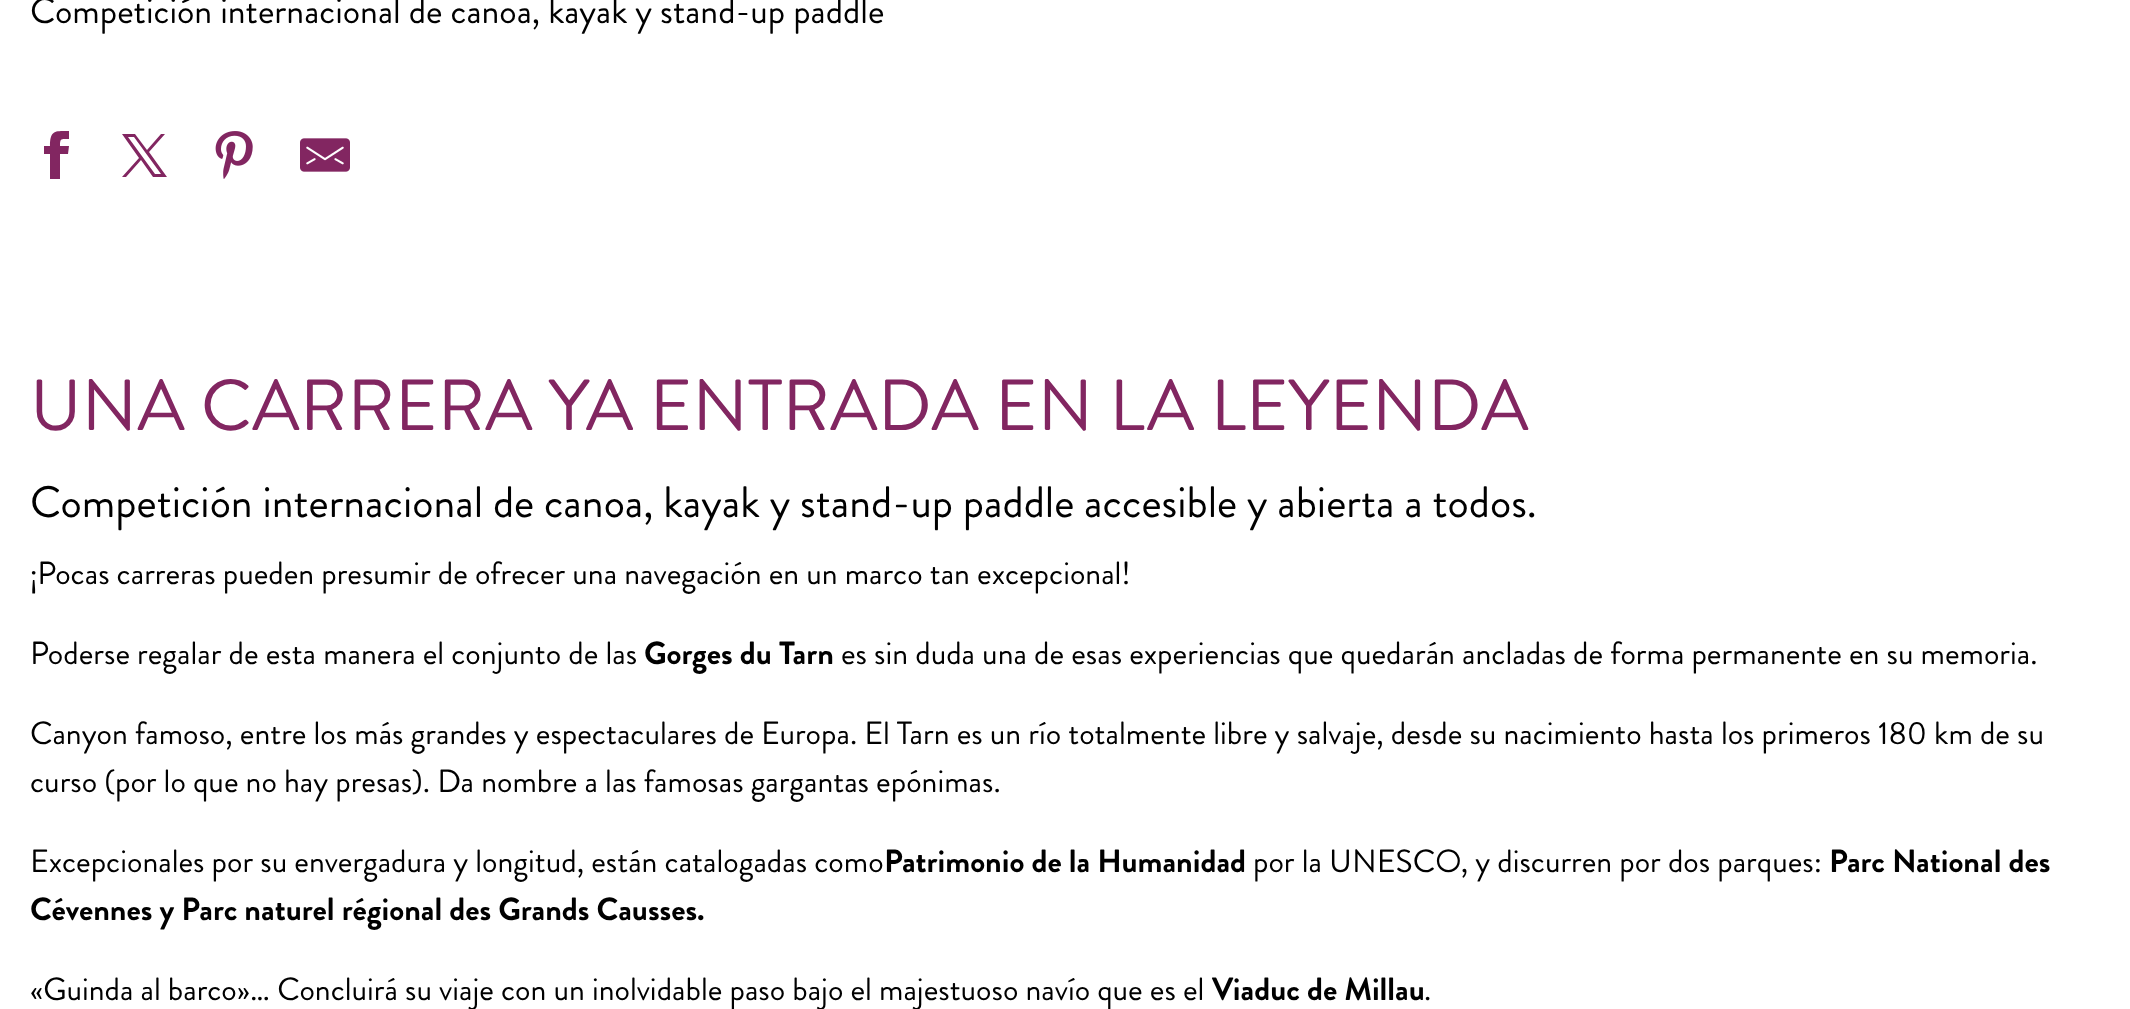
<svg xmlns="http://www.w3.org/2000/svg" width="2130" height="1009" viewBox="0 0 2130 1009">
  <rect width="100%" height="100%" fill="#ffffff"/>
  <text x="30" y="23" font-family="Brandon Grotesque" font-size="36" fill="#000000">Competición internacional de canoa, kayak y stand-up paddle</text>
  <path d="M69 146H60C60 138 61 139 69 139V131C55 131 50 130 50 146H44V154H50V179H60V154H68Z" fill="#822661"/>
  <path d="M122 134L139 158L122 177H126L141 160L153 177H167L149 152L165 134H161L147 150L135 134ZM128 137H134L161 174H155Z" fill="#822661"/>
  <image x="215" y="131" width="38" height="48" href="img1.png"/>
  <image x="300" y="138" width="50" height="34" href="img2.png"/>
  <text x="30" y="430" font-family="Brandon Grotesque" font-size="72" fill="#822661">UNA CARRERA YA ENTRADA EN LA LEYENDA</text>
  <text x="30" y="517" font-family="Brandon Grotesque" font-size="44" fill="#000000">Competición internacional de canoa, kayak y stand-up paddle accesible y abierta a todos.</text>
  <text x="30" y="584" font-family="Brandon Grotesque" font-size="32" fill="#000000">¡Pocas carreras pueden presumir de ofrecer una navegación en un marco tan excepcional!</text>
  <text x="30" y="664" font-family="Brandon Grotesque" font-size="32" fill="#000000">Poderse regalar de esta manera el conjunto de las</text>
  <text x="644" y="664" font-family="Brandon Grotesque" font-size="32" font-weight="bold" fill="#000000">Gorges du Tarn</text>
  <text x="841" y="664" font-family="Brandon Grotesque" font-size="32" fill="#000000">es sin duda una de esas experiencias que quedarán ancladas de forma permanente en su memoria.</text>
  <text x="30" y="744" font-family="Brandon Grotesque" font-size="32" fill="#000000">Canyon famoso, entre los más grandes y espectaculares de Europa. El Tarn es un río totalmente libre y salvaje, desde su nacimiento hasta los primeros 180 km de su</text>
  <text x="30" y="792" font-family="Brandon Grotesque" font-size="32" fill="#000000">curso (por lo que no hay presas). Da nombre a las famosas gargantas epónimas.</text>
  <text x="30" y="872" font-family="Brandon Grotesque" font-size="32" fill="#000000">Excepcionales por su envergadura y longitud, están catalogadas como</text>
  <text x="884" y="872" font-family="Brandon Grotesque" font-size="32" font-weight="bold" fill="#000000">Patrimonio de la Humanidad</text>
  <text x="1253" y="872" font-family="Brandon Grotesque" font-size="32" fill="#000000">por la UNESCO, y discurren por dos parques:</text>
  <text x="1829" y="872" font-family="Brandon Grotesque" font-size="32" font-weight="bold" fill="#000000">Parc National des</text>
  <text x="30" y="920" font-family="Brandon Grotesque" font-size="32" font-weight="bold" fill="#000000">Cévennes y Parc naturel régional des Grands Causses.</text>
  <text x="30" y="1000" font-family="Brandon Grotesque" font-size="32" fill="#000000">«Guinda al barco»… Concluirá su viaje con un inolvidable paso bajo el majestuoso navío que es el</text>
  <text x="1212" y="1000" font-family="Brandon Grotesque" font-size="32" font-weight="bold" fill="#000000">Viaduc de Millau</text>
  <text x="1424" y="1000" font-family="Brandon Grotesque" font-size="32" fill="#000000">.</text>
</svg>
